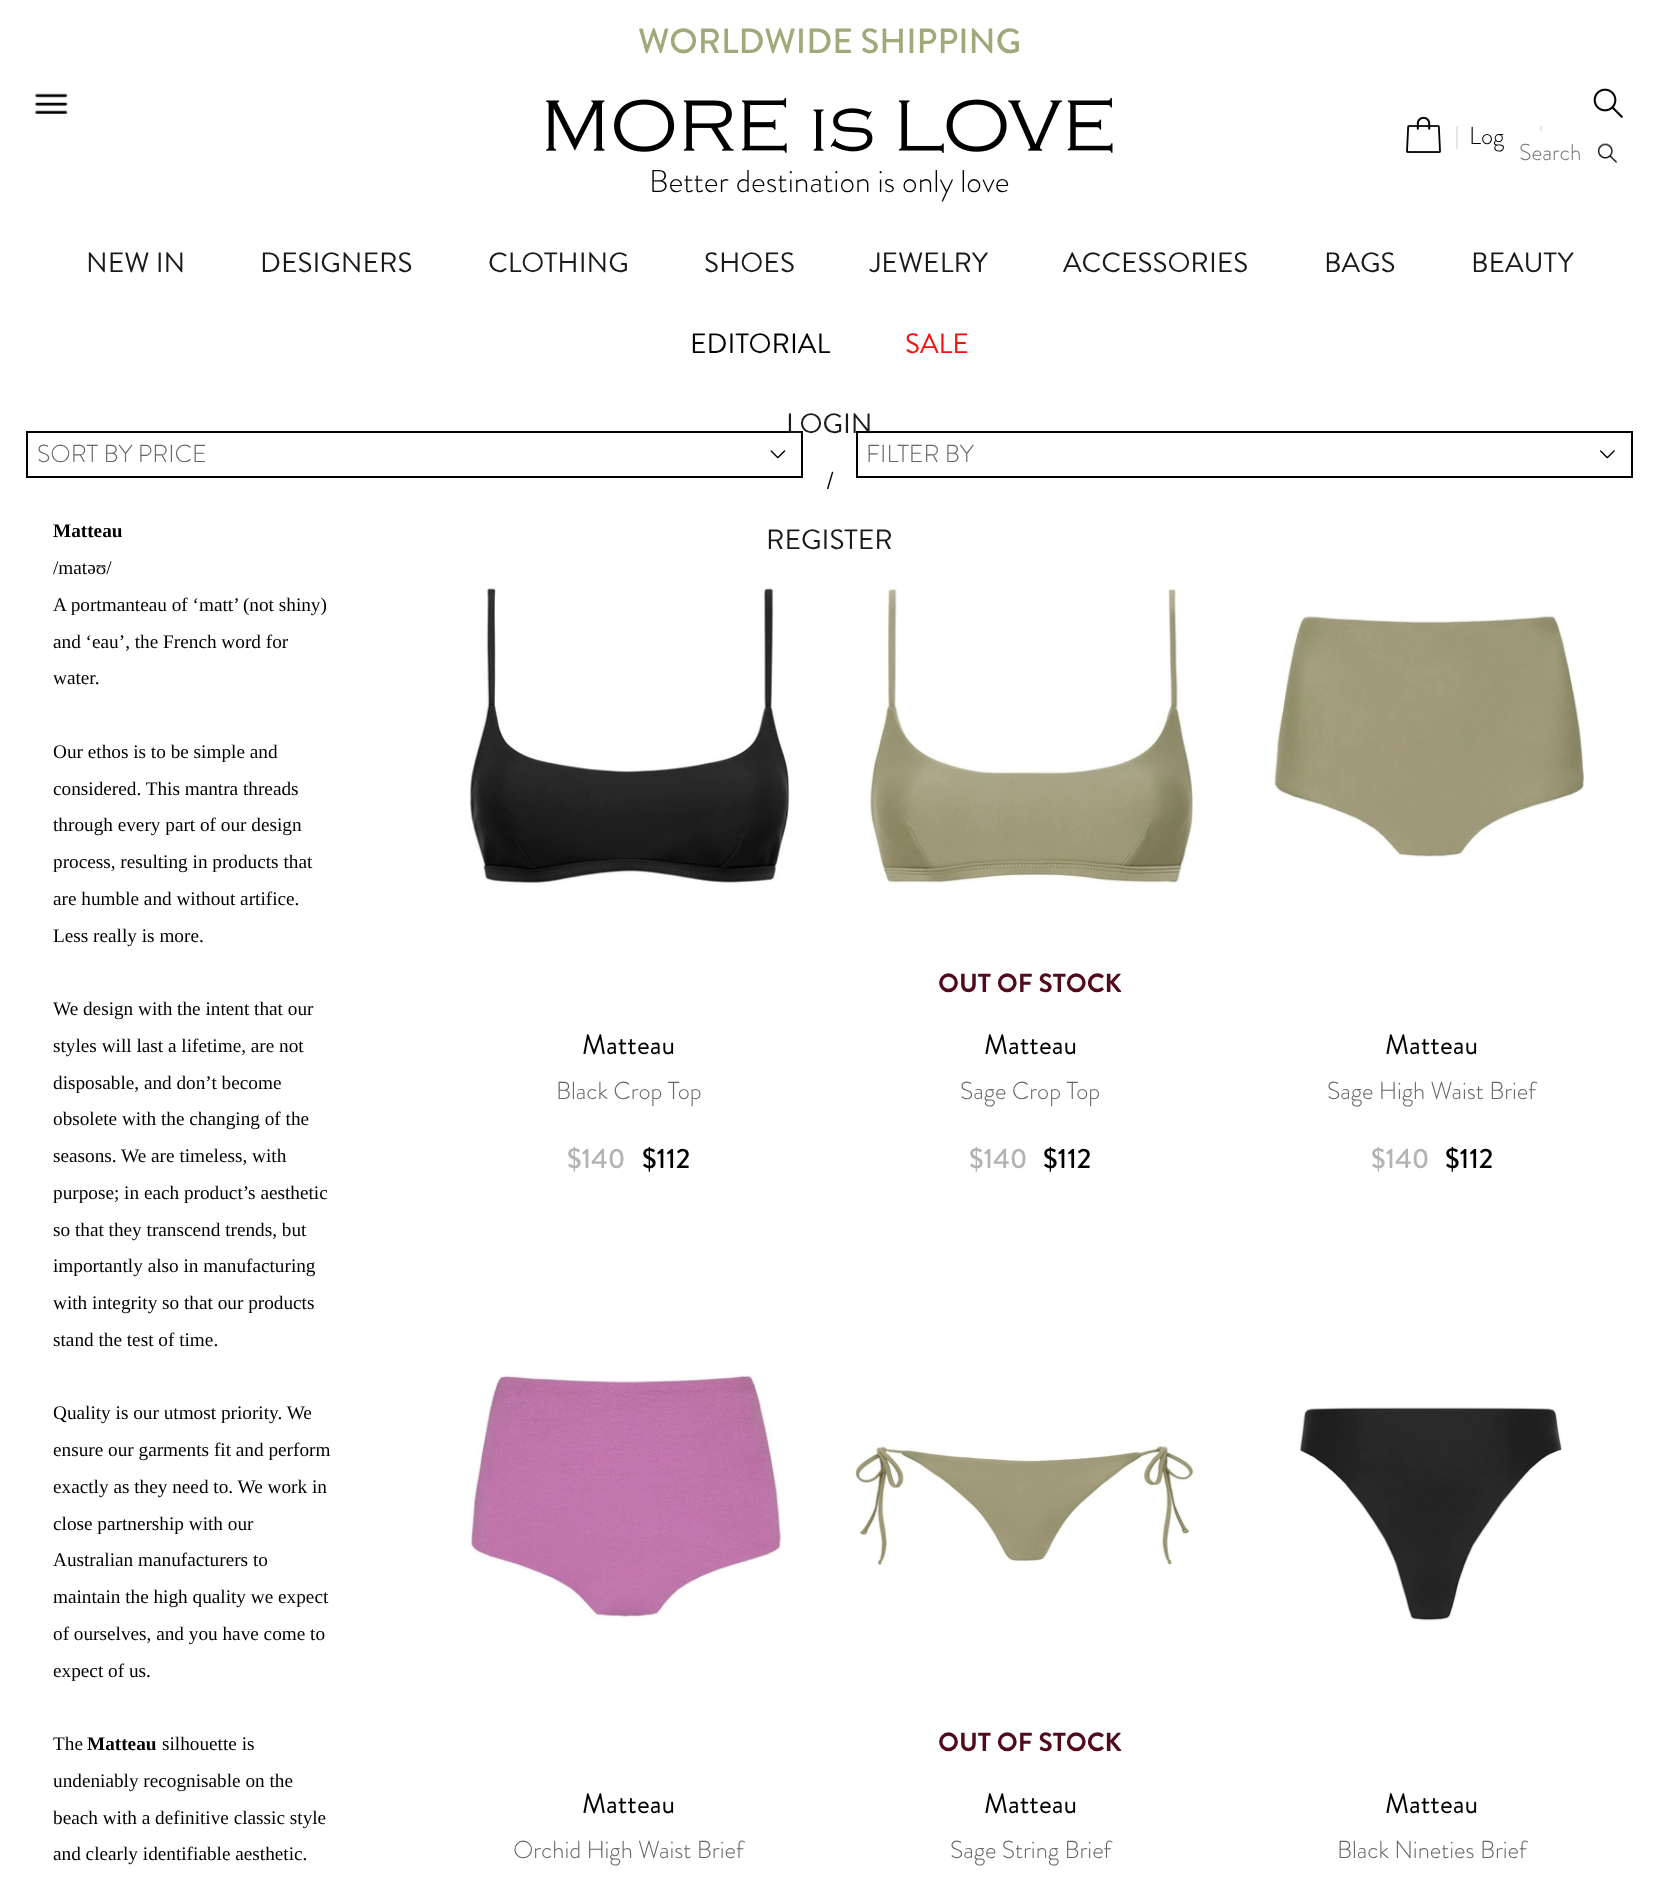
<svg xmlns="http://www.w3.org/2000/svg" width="1659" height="1899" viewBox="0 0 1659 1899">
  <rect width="100%" height="100%" fill="#ffffff"/>
  <text x="638" y="53" font-family="Brandon Grotesque" font-size="35" font-weight="500" fill="#a1a97a">WORLDWIDE SHIPPING</text>
  <image x="35" y="93" width="33" height="21" href="img1.png"/>
  <image x="1593" y="88" width="30" height="30" href="img2.png"/>
  <image x="1406" y="116" width="35" height="37" href="img3.png"/>
  <rect x="1456" y="126" width="2" height="23" fill="#e6e6e6"/>
  <text x="1469" y="144" font-family="Brandon Grotesque" font-size="24.5" font-weight="300" fill="#000000">Log</text>
  <rect x="1540" y="126" width="2" height="5" fill="#e6e6e6"/>
  <image x="546" y="98" width="567" height="55" href="img4.png"/>
  <text x="649" y="192" font-family="Brandon Grotesque" font-size="31.5" font-weight="300" fill="#000000">Better destination is only love</text>
  <text x="1519" y="160" font-family="Brandon Grotesque" font-size="23" font-weight="300" fill="#757575">Search</text>
  <image x="1597" y="143" width="20" height="20" href="img5.png"/>
  <text x="86" y="272" font-family="Brandon Grotesque" font-size="28" fill="#1a1a1a">NEW IN</text>
  <text x="260" y="272" font-family="Brandon Grotesque" font-size="28" fill="#1a1a1a">DESIGNERS</text>
  <text x="488" y="272" font-family="Brandon Grotesque" font-size="28" fill="#1a1a1a">CLOTHING</text>
  <text x="704" y="272" font-family="Brandon Grotesque" font-size="28" fill="#1a1a1a">SHOES</text>
  <text x="870" y="272" font-family="Brandon Grotesque" font-size="28" fill="#1a1a1a">JEWELRY</text>
  <text x="1063" y="272" font-family="Brandon Grotesque" font-size="28" fill="#1a1a1a">ACCESSORIES</text>
  <text x="1324" y="272" font-family="Brandon Grotesque" font-size="28" fill="#1a1a1a">BAGS</text>
  <text x="1471" y="272" font-family="Brandon Grotesque" font-size="28" fill="#1a1a1a">BEAUTY</text>
  <text x="690" y="353" font-family="Brandon Grotesque" font-size="28" fill="#000000">EDITORIAL</text>
  <text x="905" y="353" font-family="Brandon Grotesque" font-size="28" fill="#ff0b0b">SALE</text>
  <rect x="27" y="432" width="775" height="45" fill="none" stroke="#000000" stroke-width="2"/>
  <rect x="857" y="432" width="775" height="45" fill="none" stroke="#000000" stroke-width="2"/>
  <text x="786" y="433" font-family="Brandon Grotesque" font-size="28" fill="#1a1a1a">LOGIN</text>
  <text x="826" y="489" font-family="Brandon Grotesque" font-size="24.5" fill="#000000">/</text>
  <text x="766" y="549" font-family="Brandon Grotesque" font-size="28" fill="#1a1a1a">REGISTER</text>
  <image x="770" y="450" width="16" height="9" href="img6.png"/>
  <text x="37" y="462" font-family="Brandon Grotesque" font-size="24.5" font-weight="300" fill="#666666">SORT BY PRICE</text>
  <image x="1600" y="450" width="15" height="9" href="img7.png"/>
  <text x="866" y="462" font-family="Brandon Grotesque" font-size="24.5" font-weight="300" fill="#666666">FILTER BY</text>
  <text x="53" y="537" font-family="Liberation Serif" font-size="19.25" font-weight="bold" fill="#000000">Matteau</text>
  <text x="53" y="574" font-family="Liberation Serif" font-size="19.25" fill="#000000">/matəʊ/</text>
  <text x="53" y="611" font-family="Liberation Serif" font-size="19.25" fill="#000000">A portmanteau of ‘matt’ (not shiny)</text>
  <text x="53" y="648" font-family="Liberation Serif" font-size="19.25" fill="#000000">and ‘eau’, the French word for</text>
  <text x="53" y="684" font-family="Liberation Serif" font-size="19.25" fill="#000000">water.</text>
  <text x="53" y="758" font-family="Liberation Serif" font-size="19.25" fill="#000000">Our ethos is to be simple and</text>
  <text x="53" y="795" font-family="Liberation Serif" font-size="19.25" fill="#000000">considered. This mantra threads</text>
  <text x="53" y="831" font-family="Liberation Serif" font-size="19.25" fill="#000000">through every part of our design</text>
  <text x="53" y="868" font-family="Liberation Serif" font-size="19.25" fill="#000000">process, resulting in products that</text>
  <text x="53" y="905" font-family="Liberation Serif" font-size="19.25" fill="#000000">are humble and without artifice.</text>
  <text x="53" y="942" font-family="Liberation Serif" font-size="19.25" fill="#000000">Less really is more.</text>
  <text x="53" y="1015" font-family="Liberation Serif" font-size="19.25" fill="#000000">We design with the intent that our</text>
  <text x="53" y="1052" font-family="Liberation Serif" font-size="19.25" fill="#000000">styles will last a lifetime, are not</text>
  <text x="53" y="1089" font-family="Liberation Serif" font-size="19.25" fill="#000000">disposable, and don’t become</text>
  <text x="53" y="1125" font-family="Liberation Serif" font-size="19.25" fill="#000000">obsolete with the changing of the</text>
  <text x="53" y="1162" font-family="Liberation Serif" font-size="19.25" fill="#000000">seasons. We are timeless, with</text>
  <text x="53" y="1199" font-family="Liberation Serif" font-size="19.25" fill="#000000">purpose; in each product’s aesthetic</text>
  <text x="53" y="1236" font-family="Liberation Serif" font-size="19.25" fill="#000000">so that they transcend trends, but</text>
  <text x="53" y="1272" font-family="Liberation Serif" font-size="19.25" fill="#000000">importantly also in manufacturing</text>
  <text x="53" y="1309" font-family="Liberation Serif" font-size="19.25" fill="#000000">with integrity so that our products</text>
  <text x="53" y="1346" font-family="Liberation Serif" font-size="19.25" fill="#000000">stand the test of time.</text>
  <text x="53" y="1419" font-family="Liberation Serif" font-size="19.25" fill="#000000">Quality is our utmost priority. We</text>
  <text x="53" y="1456" font-family="Liberation Serif" font-size="19.25" fill="#000000">ensure our garments fit and perform</text>
  <text x="53" y="1493" font-family="Liberation Serif" font-size="19.25" fill="#000000">exactly as they need to. We work in</text>
  <text x="53" y="1530" font-family="Liberation Serif" font-size="19.25" fill="#000000">close partnership with our</text>
  <text x="53" y="1566" font-family="Liberation Serif" font-size="19.25" fill="#000000">Australian manufacturers to</text>
  <text x="53" y="1603" font-family="Liberation Serif" font-size="19.25" fill="#000000">maintain the high quality we expect</text>
  <text x="53" y="1640" font-family="Liberation Serif" font-size="19.25" fill="#000000">of ourselves, and you have come to</text>
  <text x="53" y="1677" font-family="Liberation Serif" font-size="19.25" fill="#000000">expect of us.</text>
  <text x="53" y="1750" font-family="Liberation Serif" font-size="19.25" fill="#000000">The</text>
  <text x="87" y="1750" font-family="Liberation Serif" font-size="19.25" font-weight="bold" fill="#000000">Matteau</text>
  <text x="162" y="1750" font-family="Liberation Serif" font-size="19.25" fill="#000000">silhouette is</text>
  <text x="53" y="1787" font-family="Liberation Serif" font-size="19.25" fill="#000000">undeniably recognisable on the</text>
  <text x="53" y="1824" font-family="Liberation Serif" font-size="19.25" fill="#000000">beach with a definitive classic style</text>
  <text x="53" y="1860" font-family="Liberation Serif" font-size="19.25" fill="#000000">and clearly identifiable aesthetic.</text>
  <image x="469" y="588" width="321" height="297" href="img8.png"/>
  <text x="582" y="1054" font-family="Brandon Grotesque" font-size="28" fill="#000000">Matteau</text>
  <text x="556" y="1099" font-family="Brandon Grotesque" font-size="24.5" font-weight="300" fill="#666666">Black Crop Top</text>
  <text x="567" y="1168" font-family="Brandon Grotesque" font-size="28" font-weight="500" fill="#b3b3b3">$140</text>
  <text x="642" y="1168" font-family="Brandon Grotesque" font-size="28" font-weight="500" fill="#000000">$112</text>
  <image x="869" y="587" width="325" height="297" href="img9.png"/>
  <text x="938" y="992" font-family="Brandon Grotesque" font-size="26.25" font-weight="bold" fill="#51091b">OUT OF STOCK</text>
  <text x="984" y="1054" font-family="Brandon Grotesque" font-size="28" fill="#000000">Matteau</text>
  <text x="960" y="1099" font-family="Brandon Grotesque" font-size="24.5" font-weight="300" fill="#666666">Sage Crop Top</text>
  <text x="969" y="1168" font-family="Brandon Grotesque" font-size="28" font-weight="500" fill="#b3b3b3">$140</text>
  <text x="1043" y="1168" font-family="Brandon Grotesque" font-size="28" font-weight="500" fill="#000000">$112</text>
  <image x="1273" y="614" width="313" height="243" href="img10.png"/>
  <text x="1385" y="1054" font-family="Brandon Grotesque" font-size="28" fill="#000000">Matteau</text>
  <text x="1327" y="1099" font-family="Brandon Grotesque" font-size="24.5" font-weight="300" fill="#666666">Sage High Waist Brief</text>
  <text x="1371" y="1168" font-family="Brandon Grotesque" font-size="28" font-weight="500" fill="#b3b3b3">$140</text>
  <text x="1445" y="1168" font-family="Brandon Grotesque" font-size="28" font-weight="500" fill="#000000">$112</text>
  <image x="468" y="1374" width="314" height="245" href="img11.png"/>
  <text x="582" y="1813" font-family="Brandon Grotesque" font-size="28" fill="#000000">Matteau</text>
  <text x="513" y="1858" font-family="Brandon Grotesque" font-size="24.5" font-weight="300" fill="#666666">Orchid High Waist Brief</text>
  <image x="855" y="1445" width="340" height="120" href="img12.png"/>
  <text x="938" y="1751" font-family="Brandon Grotesque" font-size="26.25" font-weight="bold" fill="#51091b">OUT OF STOCK</text>
  <text x="984" y="1813" font-family="Brandon Grotesque" font-size="28" fill="#000000">Matteau</text>
  <text x="950" y="1858" font-family="Brandon Grotesque" font-size="24.5" font-weight="300" fill="#666666">Sage String Brief</text>
  <image x="1299" y="1407" width="263" height="214" href="img13.png"/>
  <text x="1385" y="1813" font-family="Brandon Grotesque" font-size="28" fill="#000000">Matteau</text>
  <text x="1337" y="1858" font-family="Brandon Grotesque" font-size="24.5" font-weight="300" fill="#666666">Black Nineties Brief</text>
</svg>
